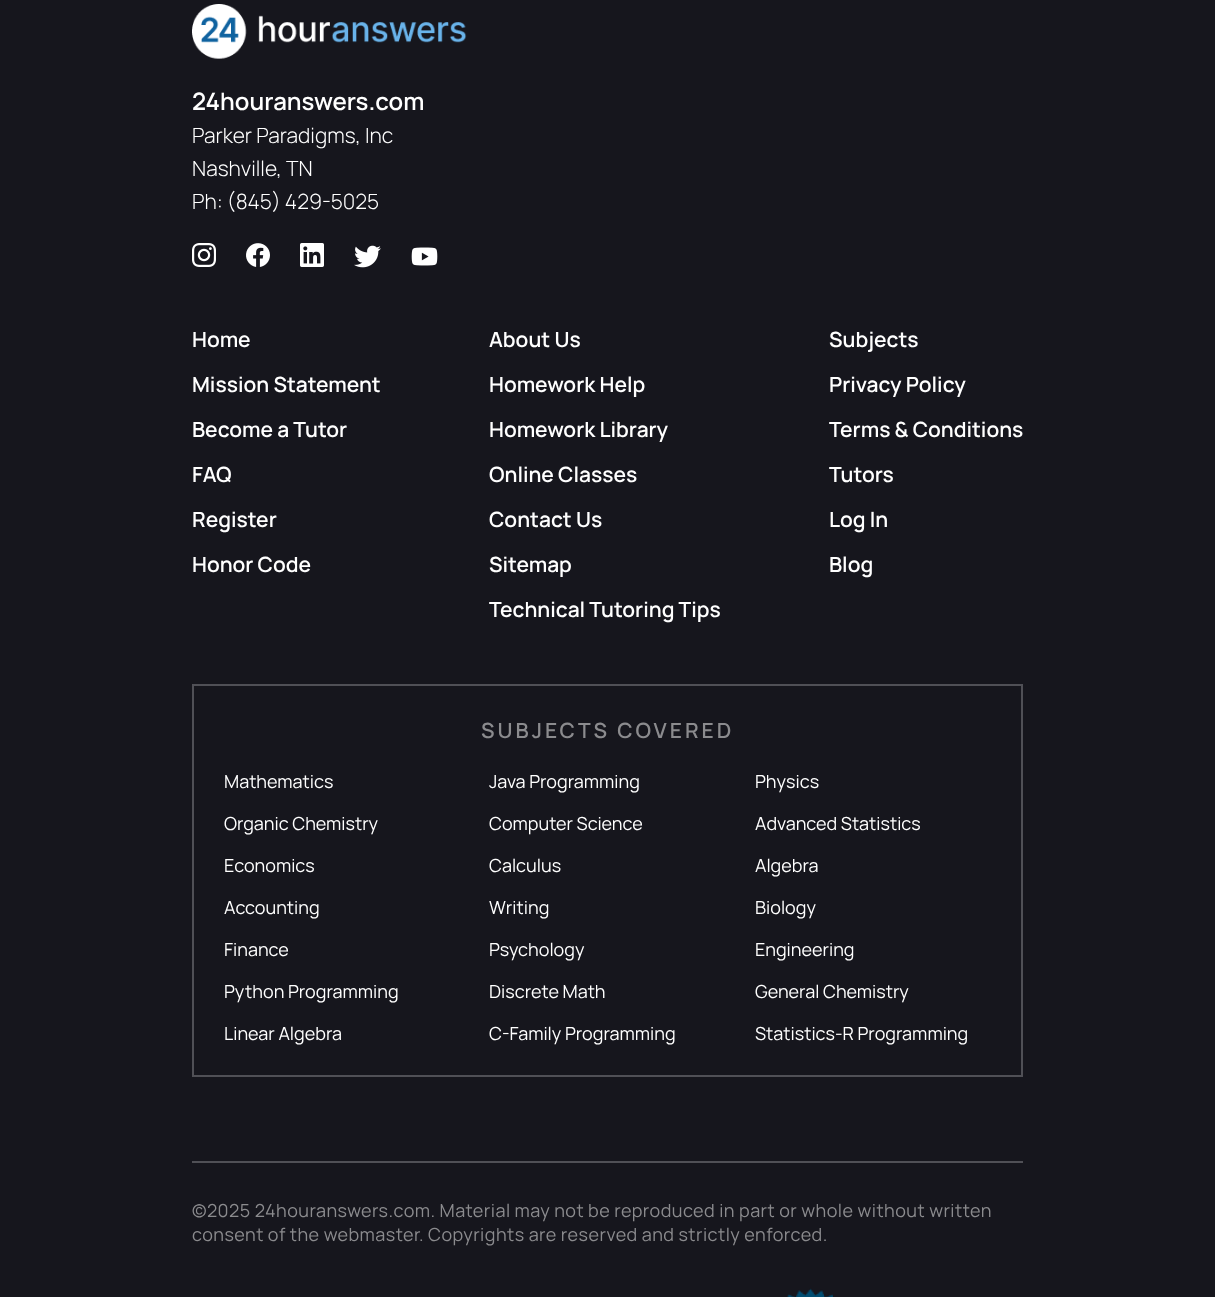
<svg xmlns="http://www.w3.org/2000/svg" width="1215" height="1297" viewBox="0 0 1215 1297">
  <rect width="100%" height="100%" fill="#16161d"/>
  <image x="192" y="4" width="275" height="55" href="img1.png"/>
  <text x="192" y="110" font-family="Manrope" font-size="24" font-weight="600" fill="#ffffff">24houranswers.com</text>
  <text x="192" y="143" font-family="Manrope" font-size="21" font-weight="300" fill="#ffffff">Parker Paradigms, Inc</text>
  <text x="192" y="176" font-family="Manrope" font-size="21" font-weight="300" fill="#ffffff">Nashville, TN</text>
  <text x="192" y="209" font-family="Manrope" font-size="21" font-weight="300" fill="#ffffff">Ph: (845) 429-5025</text>
  <image x="192" y="243" width="24" height="24" href="img2.png"/>
  <image x="246" y="243" width="24" height="24" href="img3.png"/>
  <image x="300" y="243" width="24" height="24" href="img4.png"/>
  <image x="354" y="245" width="27" height="23" href="img5.png"/>
  <image x="411" y="247" width="27" height="19" href="img6.png"/>
  <text x="192" y="347" font-family="Manrope" font-size="21" font-weight="600" fill="#ffffff">Home</text>
  <text x="192" y="392" font-family="Manrope" font-size="21" font-weight="600" fill="#ffffff">Mission Statement</text>
  <text x="192" y="437" font-family="Manrope" font-size="21" font-weight="600" fill="#ffffff">Become a Tutor</text>
  <text x="192" y="482" font-family="Manrope" font-size="21" font-weight="600" fill="#ffffff">FAQ</text>
  <text x="192" y="527" font-family="Manrope" font-size="21" font-weight="600" fill="#ffffff">Register</text>
  <text x="192" y="572" font-family="Manrope" font-size="21" font-weight="600" fill="#ffffff">Honor Code</text>
  <text x="489" y="347" font-family="Manrope" font-size="21" font-weight="600" fill="#ffffff">About Us</text>
  <text x="489" y="392" font-family="Manrope" font-size="21" font-weight="600" fill="#ffffff">Homework Help</text>
  <text x="489" y="437" font-family="Manrope" font-size="21" font-weight="600" fill="#ffffff">Homework Library</text>
  <text x="489" y="482" font-family="Manrope" font-size="21" font-weight="600" fill="#ffffff">Online Classes</text>
  <text x="489" y="527" font-family="Manrope" font-size="21" font-weight="600" fill="#ffffff">Contact Us</text>
  <text x="489" y="572" font-family="Manrope" font-size="21" font-weight="600" fill="#ffffff">Sitemap</text>
  <text x="489" y="617" font-family="Manrope" font-size="21" font-weight="600" fill="#ffffff">Technical Tutoring Tips</text>
  <text x="829" y="347" font-family="Manrope" font-size="21" font-weight="600" fill="#ffffff">Subjects</text>
  <text x="829" y="392" font-family="Manrope" font-size="21" font-weight="600" fill="#ffffff">Privacy Policy</text>
  <text x="829" y="437" font-family="Manrope" font-size="21" font-weight="600" fill="#ffffff">Terms &amp; Conditions</text>
  <text x="829" y="482" font-family="Manrope" font-size="21" font-weight="600" fill="#ffffff">Tutors</text>
  <text x="829" y="527" font-family="Manrope" font-size="21" font-weight="600" fill="#ffffff">Log In</text>
  <text x="829" y="572" font-family="Manrope" font-size="21" font-weight="600" fill="#ffffff">Blog</text>
  <rect x="193" y="685" width="829" height="391" fill="none" stroke="#505056" stroke-width="2"/>
  <text x="481" y="738" font-family="Manrope" font-size="21" font-weight="600" letter-spacing="3" fill="#8b8b8e">SUBJECTS COVERED</text>
  <text x="224" y="788" font-family="Manrope" font-size="18" fill="#ffffff">Mathematics</text>
  <text x="489" y="788" font-family="Manrope" font-size="18" fill="#ffffff">Java Programming</text>
  <text x="755" y="788" font-family="Manrope" font-size="18" fill="#ffffff">Physics</text>
  <text x="224" y="830" font-family="Manrope" font-size="18" fill="#ffffff">Organic Chemistry</text>
  <text x="489" y="830" font-family="Manrope" font-size="18" fill="#ffffff">Computer Science</text>
  <text x="755" y="830" font-family="Manrope" font-size="18" fill="#ffffff">Advanced Statistics</text>
  <text x="224" y="872" font-family="Manrope" font-size="18" fill="#ffffff">Economics</text>
  <text x="489" y="872" font-family="Manrope" font-size="18" fill="#ffffff">Calculus</text>
  <text x="755" y="872" font-family="Manrope" font-size="18" fill="#ffffff">Algebra</text>
  <text x="224" y="914" font-family="Manrope" font-size="18" fill="#ffffff">Accounting</text>
  <text x="489" y="914" font-family="Manrope" font-size="18" fill="#ffffff">Writing</text>
  <text x="755" y="914" font-family="Manrope" font-size="18" fill="#ffffff">Biology</text>
  <text x="224" y="956" font-family="Manrope" font-size="18" fill="#ffffff">Finance</text>
  <text x="489" y="956" font-family="Manrope" font-size="18" fill="#ffffff">Psychology</text>
  <text x="755" y="956" font-family="Manrope" font-size="18" fill="#ffffff">Engineering</text>
  <text x="224" y="998" font-family="Manrope" font-size="18" fill="#ffffff">Python Programming</text>
  <text x="489" y="998" font-family="Manrope" font-size="18" fill="#ffffff">Discrete Math</text>
  <text x="755" y="998" font-family="Manrope" font-size="18" fill="#ffffff">General Chemistry</text>
  <text x="224" y="1040" font-family="Manrope" font-size="18" fill="#ffffff">Linear Algebra</text>
  <text x="489" y="1040" font-family="Manrope" font-size="18" fill="#ffffff">C-Family Programming</text>
  <text x="755" y="1040" font-family="Manrope" font-size="18" fill="#ffffff">Statistics-R Programming</text>
  <rect x="192" y="1161" width="831" height="2" fill="#505056"/>
  <text x="192" y="1217" font-family="Manrope" font-size="18" letter-spacing="0.45" fill="#8b8b8e">©2025 24houranswers.com. Material may not be reproduced in part or whole without written</text>
  <text x="192" y="1241" font-family="Manrope" font-size="18" letter-spacing="0.45" fill="#8b8b8e">consent of the webmaster</text>
  <text x="419" y="1241" font-family="Manrope" font-size="18" letter-spacing="0.45" fill="#8b8b8e">. Copyrights are reserved and strictly enforced.</text>
  <image x="787" y="1288" width="46" height="9" href="img7.png"/>
</svg>
